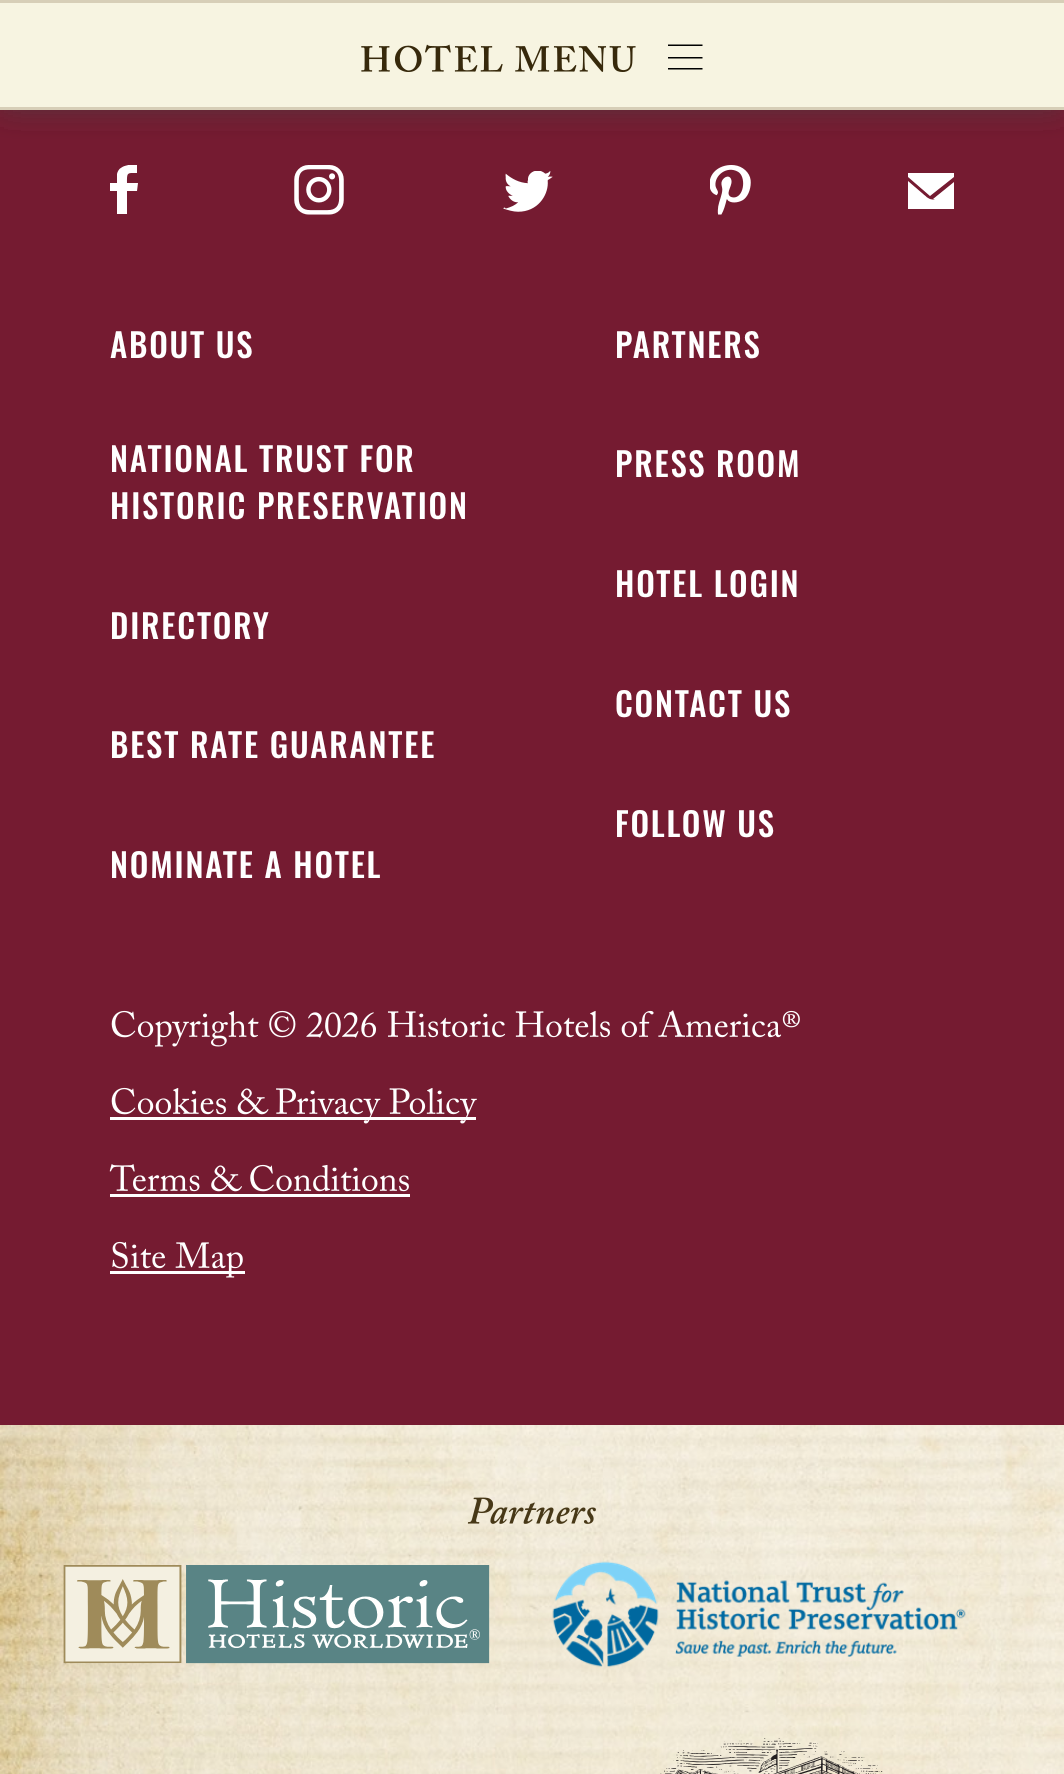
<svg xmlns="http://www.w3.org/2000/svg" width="1064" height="1774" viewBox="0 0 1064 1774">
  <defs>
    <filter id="blur1" x="-50%" y="-200%" width="200%" height="500%"><feGaussianBlur stdDeviation="14"/></filter>
    <clipPath id="clip1"><rect x="110" y="165" width="28" height="50"/></clipPath>
  </defs>
  <rect width="100%" height="100%" fill="#ffffff"/>
  <rect x="0" y="110" width="1064" height="1315" fill="#751b31"/>
  <rect x="0" y="-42" width="1064" height="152" fill="#444444" fill-opacity="0.6" filter="url(#blur1)"/>
  <rect x="0" y="3" width="1064" height="104" fill="#f7f4e1"/>
  <rect x="0" y="0" width="1064" height="3" fill="#d7ceb7"/>
  <rect x="0" y="107" width="1064" height="3" fill="#d7ceb7"/>
  <image x="361" y="44" width="275" height="28" href="img1.png"/>
  <path d="M668 46V44.5H702.5V46ZM668 58.5V57H702.5V58.5ZM668 69.5V68H702.5V69.5Z" fill="#000000" fill-rule="evenodd"/>
  <g clip-path="url(#clip1)">
    <path d="M137 191H127V214H117V191H110V183H117V174C119 165 130 164 137 165V173C127 173 127 172 127 183H138Z" fill="#ffffff" fill-rule="evenodd"/>
  </g>
  <image x="294" y="165" width="50" height="50" href="img2.png"/>
  <image x="503" y="171" width="50" height="41" href="img3.png"/>
  <image x="710" y="165" width="41" height="50" href="img4.png"/>
  <path d="M954 177L930 196L908 177V173H954ZM954 182V209H908V181L922 193C928 198 928 199 935 200L933 199Z" fill="#ffffff" fill-rule="evenodd"/>
  <text x="110" y="358" font-family="Oswald" font-size="33" font-weight="500" letter-spacing="1.8" fill="#ffffff">ABOUT US</text>
  <text x="110" y="472" font-family="Oswald" font-size="33" font-weight="500" letter-spacing="1.8" fill="#ffffff">NATIONAL TRUST FOR</text>
  <text x="110" y="519" font-family="Oswald" font-size="33" font-weight="500" letter-spacing="1.8" fill="#ffffff">HISTORIC PRESERVATION</text>
  <text x="110" y="639" font-family="Oswald" font-size="33" font-weight="500" letter-spacing="1.8" fill="#ffffff">DIRECTORY</text>
  <text x="110" y="758" font-family="Oswald" font-size="33" font-weight="500" letter-spacing="1.8" fill="#ffffff">BEST RATE GUARANTEE</text>
  <text x="110" y="878" font-family="Oswald" font-size="33" font-weight="500" letter-spacing="1.8" fill="#ffffff">NOMINATE A HOTEL</text>
  <text x="615" y="358" font-family="Oswald" font-size="33" font-weight="500" letter-spacing="1.8" fill="#ffffff">PARTNERS</text>
  <text x="615" y="477" font-family="Oswald" font-size="33" font-weight="500" letter-spacing="1.8" fill="#ffffff">PRESS ROOM</text>
  <text x="615" y="597" font-family="Oswald" font-size="33" font-weight="500" letter-spacing="1.8" fill="#ffffff">HOTEL LOGIN</text>
  <text x="615" y="717" font-family="Oswald" font-size="33" font-weight="500" letter-spacing="1.8" fill="#ffffff">CONTACT US</text>
  <text x="615" y="837" font-family="Oswald" font-size="33" font-weight="500" letter-spacing="1.8" fill="#ffffff">FOLLOW US</text>
  <image x="111" y="1010" width="689" height="37" href="img5.png"/>
  <rect x="110" y="1117" width="366" height="3" fill="#ffffff"/>
  <image x="111" y="1087" width="366" height="37" href="img6.png"/>
  <image x="109" y="1164" width="300" height="28" href="img7.png"/>
  <rect x="110" y="1194" width="300" height="3" fill="#ffffff"/>
  <rect x="110" y="1271" width="135" height="3" fill="#ffffff"/>
  <image x="112" y="1241" width="131" height="37" href="img8.png"/>
  <image x="0" y="1425" width="1064" height="349" href="img9.png"/>
  <image x="467" y="1497" width="129" height="27" href="img10.png"/>
  <image x="63" y="1565" width="427" height="99" href="img11.png"/>
  <image x="552" y="1561" width="414" height="106" href="img12.png"/>
  <image x="660" y="1738" width="223" height="36" href="img13.png"/>
</svg>
